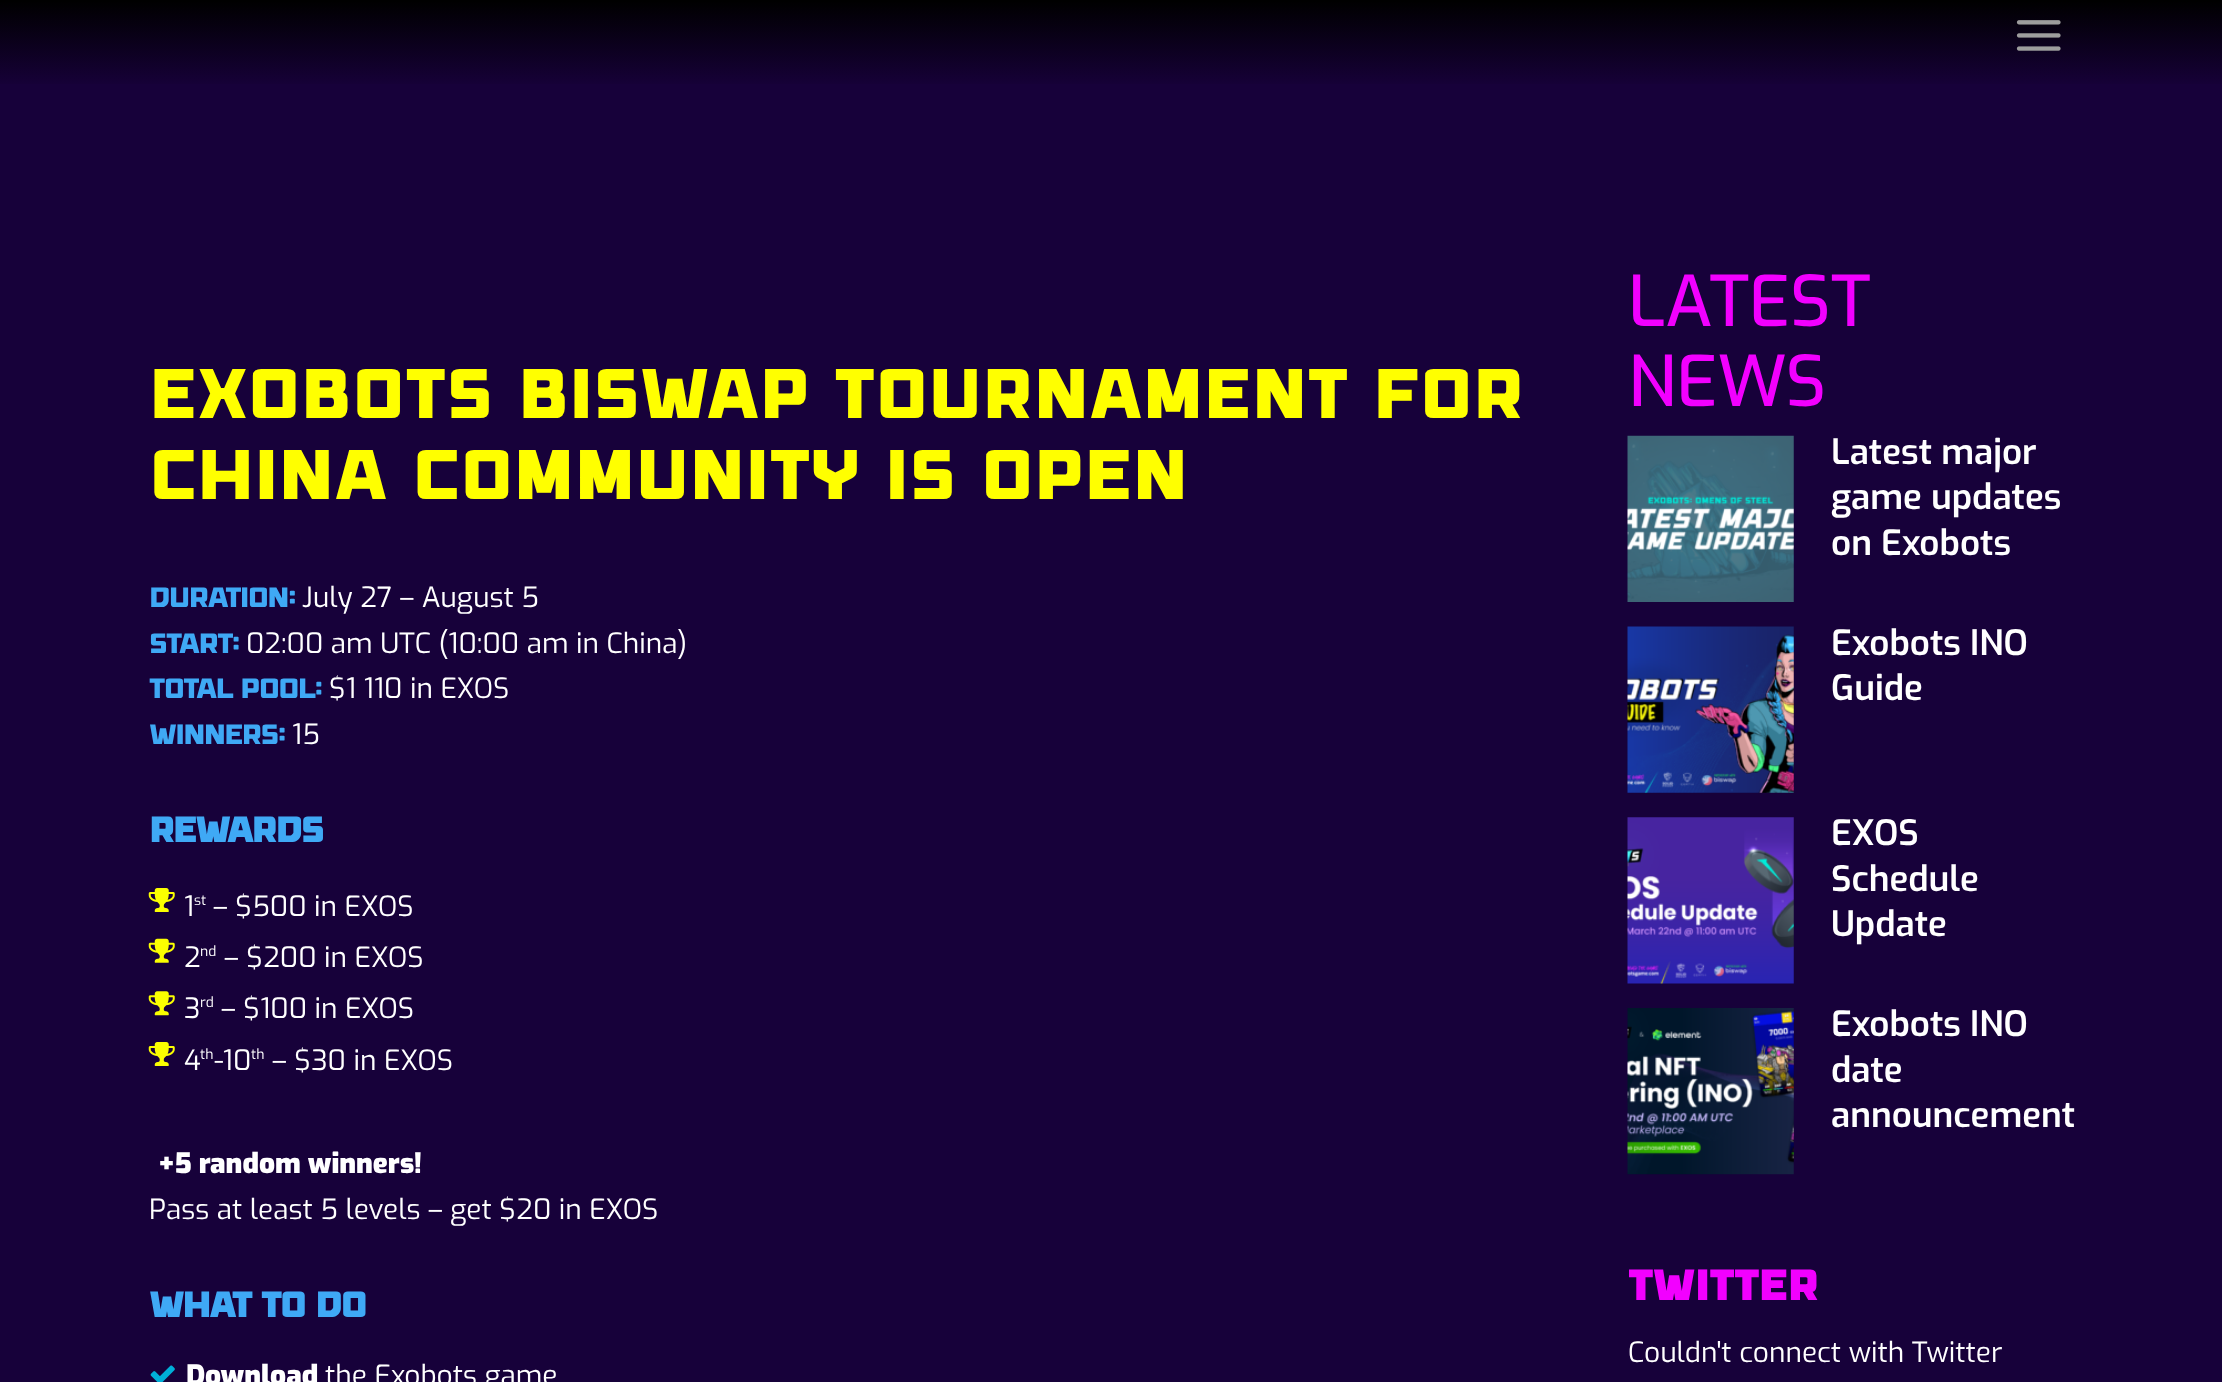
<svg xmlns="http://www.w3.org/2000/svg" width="2222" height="1382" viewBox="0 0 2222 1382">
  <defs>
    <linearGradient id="g1" gradientUnits="userSpaceOnUse" x1="1111" y1="0" x2="1111" y2="88"><stop offset="0.01" stop-color="#000000"/><stop offset="1" stop-color="#17013a"/></linearGradient>
  </defs>
  <rect width="100%" height="100%" fill="#17013a"/>
  <rect x="0" y="0" width="2222" height="84" fill="url(#g1)"/>
  <image x="2016" y="20" width="45" height="31" href="img1.png"/>
  <text x="149" y="418" font-family="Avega" font-size="70" fill="#ffff00">EXOBOTS BISWAP TOURNAMENT FOR</text>
  <text x="149" y="499" font-family="Avega" font-size="70" fill="#ffff00">CHINA COMMUNITY IS OPEN</text>
  <text x="149" y="607" font-family="Avega" font-size="28" letter-spacing="-1.75" fill="#3fa9f5">Duration:</text>
  <text x="302" y="607" font-family="Exo" font-size="28" fill="#ffffff">July 27 – August 5</text>
  <text x="149" y="653" font-family="Avega" font-size="28" letter-spacing="-1.75" fill="#3fa9f5">Start:</text>
  <text x="246" y="653" font-family="Exo" font-size="28" fill="#ffffff">02:00 am UTC (10:00 am in China)</text>
  <text x="149" y="698" font-family="Avega" font-size="28" letter-spacing="-1.75" fill="#3fa9f5">Total Pool:</text>
  <text x="329" y="698" font-family="Exo" font-size="28" fill="#ffffff">$1 110 in EXOS</text>
  <text x="149" y="744" font-family="Avega" font-size="28" letter-spacing="-1.75" fill="#3fa9f5">Winners:</text>
  <text x="292" y="744" font-family="Exo" font-size="28" fill="#ffffff">15</text>
  <text x="149" y="842" font-family="Avega" font-size="35" font-weight="bold" letter-spacing="-1.75" fill="#3fa9f5">REWARDS</text>
  <image x="148" y="888" width="27" height="24" href="img2.png"/>
  <text x="184" y="916" font-family="Exo" font-size="28" fill="#ffffff">1</text>
  <text x="194" y="905" font-family="Exo" font-size="14" fill="#ffffff">st</text>
  <text x="213" y="916" font-family="Exo" font-size="28" fill="#ffffff">– $500 in EXOS</text>
  <image x="148" y="938" width="27" height="25" href="img3.png"/>
  <text x="184" y="967" font-family="Exo" font-size="28" fill="#ffffff">2</text>
  <text x="200" y="956" font-family="Exo" font-size="14" fill="#ffffff">nd</text>
  <text x="224" y="967" font-family="Exo" font-size="28" fill="#ffffff">– $200 in EXOS</text>
  <image x="148" y="991" width="27" height="25" href="img4.png"/>
  <text x="184" y="1018" font-family="Exo" font-size="28" fill="#ffffff">3</text>
  <text x="200" y="1007" font-family="Exo" font-size="14" fill="#ffffff">rd</text>
  <text x="221" y="1018" font-family="Exo" font-size="28" fill="#ffffff">– $100 in EXOS</text>
  <image x="148" y="1042" width="27" height="24" href="img2.png"/>
  <text x="184" y="1070" font-family="Exo" font-size="28" fill="#ffffff">4</text>
  <text x="200" y="1059" font-family="Exo" font-size="14" fill="#ffffff">th</text>
  <text x="214" y="1070" font-family="Exo" font-size="28" fill="#ffffff">-10</text>
  <text x="251" y="1059" font-family="Exo" font-size="14" fill="#ffffff">th</text>
  <text x="272" y="1070" font-family="Exo" font-size="28" fill="#ffffff">– $30 in EXOS</text>
  <text x="158" y="1173" font-family="Exo" font-size="28" font-weight="900" fill="#ffffff">+5 random winners!</text>
  <text x="149" y="1219" font-family="Exo" font-size="28" fill="#ffffff">Pass at least 5 levels – get $20 in EXOS</text>
  <text x="149" y="1317" font-family="Avega" font-size="35" font-weight="bold" letter-spacing="-1.75" fill="#3fa9f5">WHAT TO DO</text>
  <image x="150" y="1365" width="25" height="17" href="img5.png"/>
  <text x="186" y="1385" font-family="Exo" font-size="28" font-weight="900" fill="#ffffff">Download</text>
  <text x="325" y="1385" font-family="Exo" font-size="28" fill="#ffffff">the Exobots game</text>
  <text x="1628" y="326" font-family="Exo" font-size="70" font-weight="500" fill="#f200ff">LATEST</text>
  <text x="1628" y="406" font-family="Exo" font-size="70" font-weight="500" fill="#f200ff">NEWS</text>
  <image x="1627" y="435" width="167" height="167" href="img6.png"/>
  <text x="1831" y="464" font-family="Exo" font-size="35" font-weight="600" fill="#ffffff">Latest major</text>
  <text x="1831" y="509" font-family="Exo" font-size="35" font-weight="600" fill="#ffffff">game updates</text>
  <text x="1831" y="555" font-family="Exo" font-size="35" font-weight="600" fill="#ffffff">on Exobots</text>
  <image x="1627" y="626" width="167" height="167" href="img7.png"/>
  <text x="1831" y="655" font-family="Exo" font-size="35" font-weight="600" fill="#ffffff">Exobots INO</text>
  <text x="1831" y="700" font-family="Exo" font-size="35" font-weight="600" fill="#ffffff">Guide</text>
  <image x="1627" y="817" width="167" height="167" href="img8.png"/>
  <text x="1831" y="845" font-family="Exo" font-size="35" font-weight="600" fill="#ffffff">EXOS</text>
  <text x="1831" y="891" font-family="Exo" font-size="35" font-weight="600" fill="#ffffff">Schedule</text>
  <text x="1831" y="936" font-family="Exo" font-size="35" font-weight="600" fill="#ffffff">Update</text>
  <image x="1627" y="1008" width="167" height="167" href="img9.png"/>
  <text x="1831" y="1036" font-family="Exo" font-size="35" font-weight="600" fill="#ffffff">Exobots INO</text>
  <text x="1831" y="1082" font-family="Exo" font-size="35" font-weight="600" fill="#ffffff">date</text>
  <text x="1831" y="1127" font-family="Exo" font-size="35" font-weight="600" fill="#ffffff">announcement</text>
  <text x="1628" y="1300" font-family="Avega" font-size="42" font-weight="bold" fill="#f200ff">Twitter</text>
  <text x="1628" y="1362" font-family="Exo" font-size="28" fill="#ffffff">Couldn't connect with Twitter</text>
</svg>
